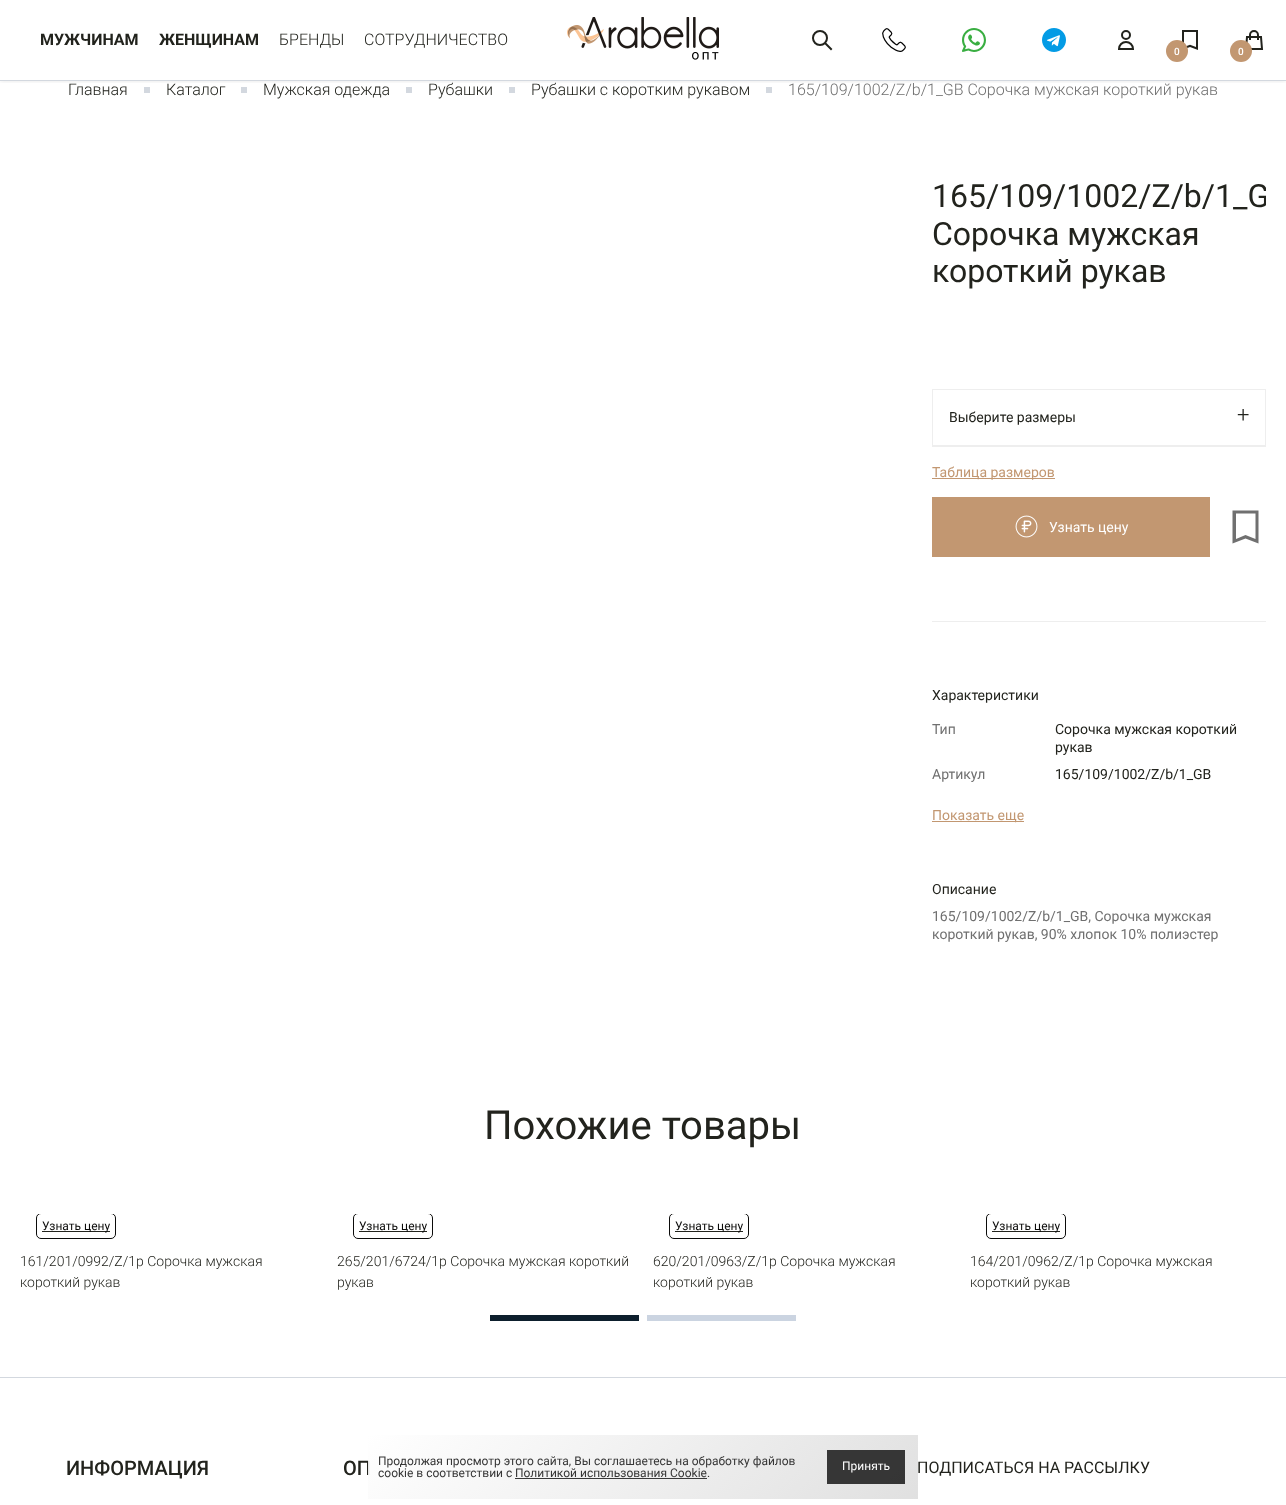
<svg xmlns="http://www.w3.org/2000/svg" width="1286" height="1505" viewBox="0 0 1286 1505">
  <defs>
    <clipPath id="clip1"><rect x="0" y="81" width="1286" height="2"/></clipPath>
    <filter id="blur1" x="-50%" y="-200%" width="200%" height="500%"><feGaussianBlur stdDeviation="2.5"/></filter>
    <clipPath id="clip2"><rect x="932" y="162" width="334" height="781"/></clipPath>
    <clipPath id="clip3"><rect x="20" y="1214" width="297" height="27"/></clipPath>
    <clipPath id="clip4"><rect x="337" y="1214" width="296" height="27"/></clipPath>
    <clipPath id="clip5"><rect x="653" y="1214" width="297" height="27"/></clipPath>
    <clipPath id="clip6"><rect x="970" y="1214" width="296" height="27"/></clipPath>
    <linearGradient id="g1" gradientUnits="userSpaceOnUse" x1="499" y1="1312" x2="787" y2="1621"><stop offset="0" stop-color="#ffffff" stop-opacity="0.9"/><stop offset="1" stop-color="#dddddd" stop-opacity="0.9"/></linearGradient>
  </defs>
  <rect width="100%" height="100%" fill="#ffffff"/>
  <rect x="144" y="87" width="6" height="6" fill="#d3d8df"/>
  <rect x="241" y="87" width="6" height="6" fill="#d3d8df"/>
  <rect x="406" y="87" width="6" height="6" fill="#d3d8df"/>
  <rect x="509" y="87" width="6" height="6" fill="#d3d8df"/>
  <rect x="766" y="87" width="6" height="6" fill="#d3d8df"/>
  <g clip-path="url(#clip1)">
    <rect x="0" y="0" width="1286" height="81" fill="#000000" fill-opacity="0.1" filter="url(#blur1)"/>
  </g>
  <rect x="0" y="80" width="1286" height="1" fill="#d3d8df"/>
  <text x="40" y="45" font-family="Roboto" font-size="16" font-weight="bold" fill="#22231d">МУЖЧИНАМ</text>
  <text x="159" y="45" font-family="Roboto" font-size="16" font-weight="bold" fill="#22231d">ЖЕНЩИНАМ</text>
  <text x="279" y="45" font-family="Roboto" font-size="16" font-weight="300" fill="#22231d">БРЕНДЫ</text>
  <text x="364" y="45" font-family="Roboto" font-size="16" font-weight="300" fill="#22231d">СОТРУДНИЧЕСТВО</text>
  <image x="567" y="17" width="152" height="43" href="img1.png"/>
  <image x="812" y="30" width="21" height="21" href="img2.png"/>
  <image x="882" y="28" width="24" height="24" href="img3.png"/>
  <image x="962" y="28" width="24" height="24" href="img4.png"/>
  <image x="1042" y="28" width="24" height="24" href="img5.png"/>
  <image x="1118" y="30" width="16" height="20" href="img6.png"/>
  <image x="1182" y="30" width="16" height="20" href="img7.png"/>
  <circle cx="1177" cy="51" r="11" fill="#c29771"/>
  <text x="1174" y="55" font-family="Roboto" font-size="10" font-weight="500" fill="#ffffff">0</text>
  <image x="1245" y="30" width="19" height="20" href="img8.png"/>
  <circle cx="1241" cy="51" r="11" fill="#c29771"/>
  <text x="1238" y="55" font-family="Roboto" font-size="10" font-weight="500" fill="#ffffff">0</text>
  <text x="68" y="95" font-family="Roboto" font-size="16" font-weight="300" fill="#22231d">Главная</text>
  <text x="166" y="95" font-family="Roboto" font-size="16" font-weight="300" fill="#22231d">Каталог</text>
  <text x="263" y="95" font-family="Roboto" font-size="16" font-weight="300" fill="#22231d">Мужская одежда</text>
  <text x="428" y="95" font-family="Roboto" font-size="16" font-weight="300" fill="#22231d">Рубашки</text>
  <text x="531" y="95" font-family="Roboto" font-size="16" font-weight="300" fill="#22231d">Рубашки с коротким рукавом</text>
  <text x="788" y="95" font-family="Roboto" font-size="16" font-weight="300" fill="#707070">165/109/1002/Z/b/1_GB Сорочка мужская короткий рукав</text>
  <rect x="932" y="621" width="334" height="1" fill="#eeeeee"/>
  <g clip-path="url(#clip2)">
    <text x="932" y="207" font-family="Roboto" font-size="32" fill="#22231d">165/109/1002/Z/b/1_G</text>
  </g>
  <text x="932" y="245" font-family="Roboto" font-size="32" fill="#22231d">Сорочка мужская</text>
  <text x="932" y="282" font-family="Roboto" font-size="32" fill="#22231d">короткий рукав</text>
  <rect x="932.5" y="389.5" width="333" height="56" fill="none" stroke="#eeeeee"/>
  <text x="949" y="422" font-family="Roboto" font-size="14" fill="#22231d">Выберите размеры</text>
  <text x="1237" y="422" font-family="Roboto" font-size="22" font-weight="300" fill="#22231d">+</text>
  <rect x="932" y="446" width="334" height="1" fill="#eeeeee"/>
  <rect x="932" y="478" width="123" height="1" fill="#c29771"/>
  <text x="932" y="477" font-family="Roboto" font-size="14" fill="#c29771">Таблица размеров</text>
  <rect x="932" y="497" width="278" height="60" fill="#c29771"/>
  <image x="1015" y="515" width="23" height="23" href="img9.png"/>
  <text x="1049" y="532" font-family="Roboto" font-size="14" fill="#ffffff">Узнать цену</text>
  <path d="M1232.5 510.5V543.5L1245.5 538.5L1258.5 543.5V510.5ZM1236 513.5H1255.5V539L1245.5 535L1236 539Z" fill="#707070"/>
  <text x="932" y="700" font-family="Roboto" font-size="14" fill="#22231d">Характеристики</text>
  <text x="932" y="734" font-family="Roboto" font-size="14" fill="#707070">Тип</text>
  <text x="1055" y="734" font-family="Roboto" font-size="14" fill="#22231d">Сорочка мужская короткий</text>
  <text x="1055" y="752" font-family="Roboto" font-size="14" fill="#22231d">рукав</text>
  <text x="932" y="779" font-family="Roboto" font-size="14" fill="#707070">Артикул</text>
  <text x="1055" y="779" font-family="Roboto" font-size="14" fill="#22231d">165/109/1002/Z/b/1_GB</text>
  <rect x="932" y="821" width="92" height="1" fill="#c29771"/>
  <text x="932" y="820" font-family="Roboto" font-size="14" fill="#c29771">Показать еще</text>
  <text x="932" y="894" font-family="Roboto" font-size="14" fill="#22231d">Описание</text>
  <text x="932" y="921" font-family="Roboto" font-size="14" fill="#707070">165/109/1002/Z/b/1_GB, Сорочка мужская</text>
  <text x="932" y="939" font-family="Roboto" font-size="14" fill="#707070">короткий рукав, 90% хлопок 10% полиэстер</text>
  <text x="484" y="1139" font-family="Roboto" font-size="40" fill="#22231d">Похожие товары</text>
  <g clip-path="url(#clip3)">
    <rect x="36.5" y="1213.5" width="79" height="25" rx="4.5" fill="none" stroke="#0b0b0a"/>
  </g>
  <rect x="42" y="1231" width="68" height="1" fill="#22231d"/>
  <text x="42" y="1230" font-family="Roboto" font-size="12" fill="#0b0b0a">Узнать цену</text>
  <text x="20" y="1266" font-family="Roboto" font-size="14" font-weight="300" fill="#22231d">161/201/0992/Z/1p Сорочка мужская</text>
  <text x="20" y="1287" font-family="Roboto" font-size="14" font-weight="300" fill="#22231d">короткий рукав</text>
  <g clip-path="url(#clip4)">
    <rect x="353.5" y="1213.5" width="79" height="25" rx="4.5" fill="none" stroke="#0b0b0a"/>
  </g>
  <rect x="359" y="1231" width="68" height="1" fill="#22231d"/>
  <text x="359" y="1230" font-family="Roboto" font-size="12" fill="#0b0b0a">Узнать цену</text>
  <text x="337" y="1266" font-family="Roboto" font-size="14" font-weight="300" fill="#22231d">265/201/6724/1p Сорочка мужская короткий</text>
  <text x="337" y="1287" font-family="Roboto" font-size="14" font-weight="300" fill="#22231d">рукав</text>
  <g clip-path="url(#clip5)">
    <rect x="669.5" y="1213.5" width="79" height="25" rx="4.5" fill="none" stroke="#0b0b0a"/>
  </g>
  <rect x="675" y="1231" width="68" height="1" fill="#22231d"/>
  <text x="675" y="1230" font-family="Roboto" font-size="12" fill="#0b0b0a">Узнать цену</text>
  <text x="653" y="1266" font-family="Roboto" font-size="14" font-weight="300" fill="#22231d">620/201/0963/Z/1p Сорочка мужская</text>
  <text x="653" y="1287" font-family="Roboto" font-size="14" font-weight="300" fill="#22231d">короткий рукав</text>
  <g clip-path="url(#clip6)">
    <rect x="986.5" y="1213.5" width="79" height="25" rx="4.5" fill="none" stroke="#0b0b0a"/>
  </g>
  <rect x="992" y="1231" width="68" height="1" fill="#22231d"/>
  <text x="992" y="1230" font-family="Roboto" font-size="12" fill="#0b0b0a">Узнать цену</text>
  <text x="970" y="1266" font-family="Roboto" font-size="14" font-weight="300" fill="#22231d">164/201/0962/Z/1p Сорочка мужская</text>
  <text x="970" y="1287" font-family="Roboto" font-size="14" font-weight="300" fill="#22231d">короткий рукав</text>
  <rect x="490" y="1315" width="149" height="6" fill="#0d1f2d"/>
  <rect x="647" y="1315" width="149" height="6" fill="#cbd4e1"/>
  <rect x="0" y="1377" width="1286" height="1" fill="#d3d8df"/>
  <text x="66" y="1475" font-family="Roboto" font-size="20" font-weight="500" fill="#22231d">ИНФОРМАЦИЯ</text>
  <text x="343" y="1475" font-family="Roboto" font-size="20" font-weight="500" fill="#22231d">ОП</text>
  <text x="917" y="1473" font-family="Roboto" font-size="16" fill="#22231d">ПОДПИСАТЬСЯ НА РАССЫЛКУ</text>
  <rect x="368" y="1435" width="550" height="64" fill="url(#g1)"/>
  <text x="378" y="1465" font-family="Roboto" font-size="12" fill="#363636">Продолжая просмотр этого сайта, Вы соглашаетесь на обработку файлов</text>
  <text x="378" y="1477" font-family="Roboto" font-size="12" fill="#363636">cookie в соответствии с</text>
  <text x="515" y="1477" font-family="Roboto" font-size="12" fill="#363636">Политикой использования Cookie</text>
  <rect x="515" y="1478" width="192" height="1" fill="#383838"/>
  <text x="707" y="1477" font-family="Roboto" font-size="12" fill="#363636">.</text>
  <rect x="827" y="1450" width="78" height="34" fill="#222222" fill-opacity="0.9"/>
  <text x="842" y="1470" font-family="Roboto" font-size="12" fill="#ffffff">Принять</text>
</svg>
